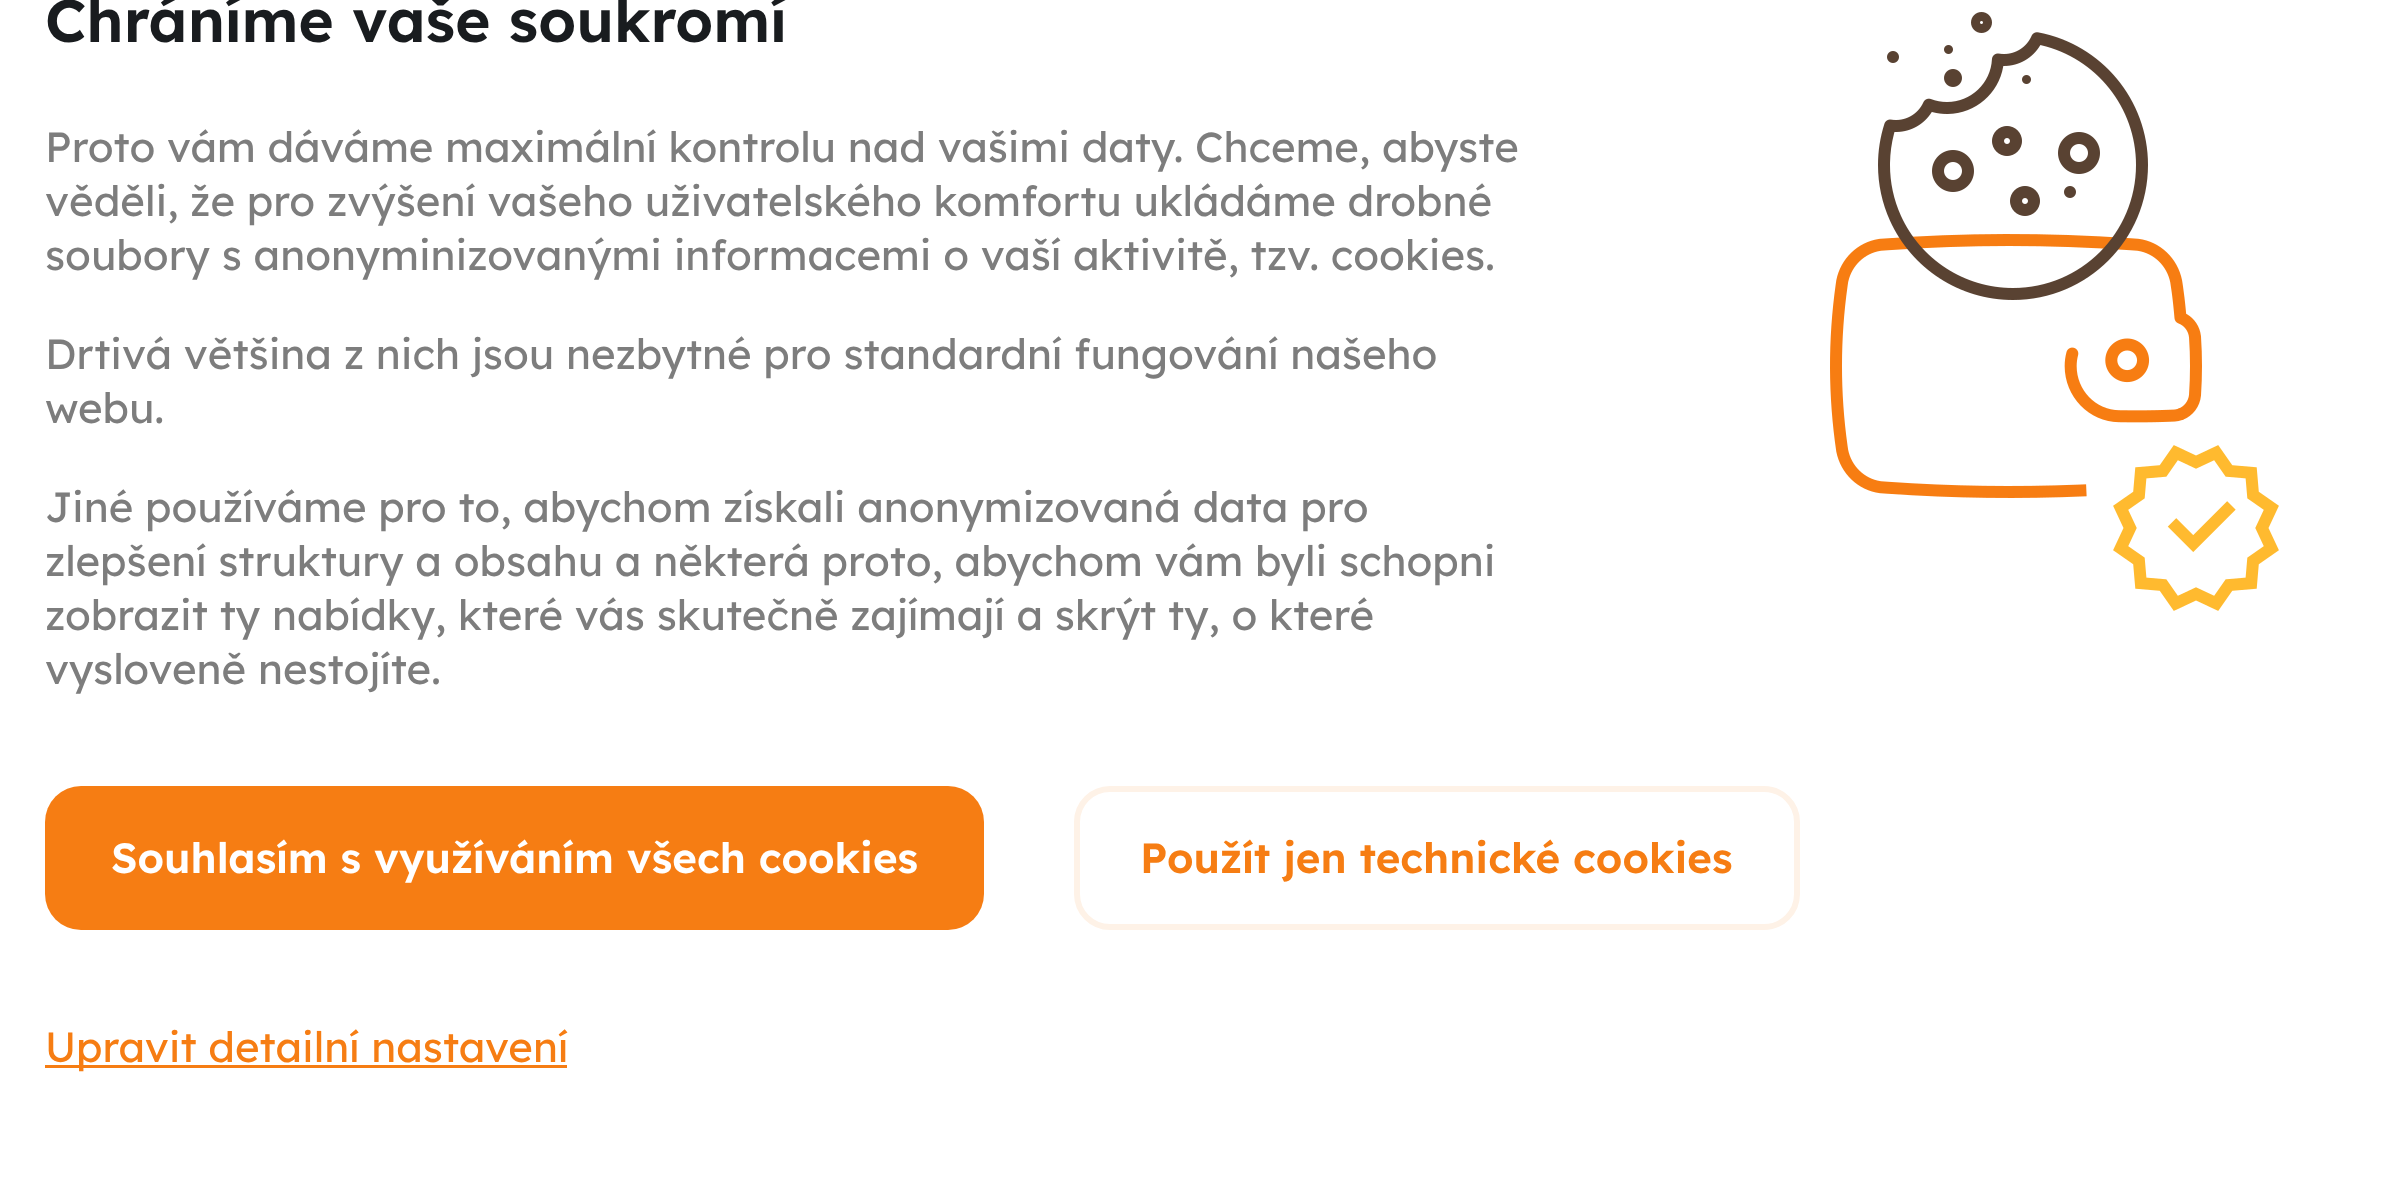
<svg xmlns="http://www.w3.org/2000/svg" width="2389" height="1192" viewBox="0 0 2389 1192">
  <rect width="100%" height="100%" fill="#ffffff"/>
  <image x="1830" y="12" width="449" height="599" href="img1.png"/>
  <text x="45" y="42" font-family="Lexend" font-size="60" font-weight="600" fill="#191c1f">Chráníme vaše soukromí</text>
  <text x="45" y="162" font-family="Lexend" font-size="42" fill="#7d7d7d">Proto vám dáváme maximální kontrolu nad vašimi daty. Chceme, abyste</text>
  <text x="45" y="216" font-family="Lexend" font-size="42" fill="#7d7d7d">věděli, že pro zvýšení vašeho uživatelského komfortu ukládáme drobné</text>
  <text x="45" y="270" font-family="Lexend" font-size="42" fill="#7d7d7d">soubory s anonyminizovanými informacemi o vaší aktivitě, tzv. cookies.</text>
  <text x="45" y="369" font-family="Lexend" font-size="42" fill="#7d7d7d">Drtivá většina z nich jsou nezbytné pro standardní fungování našeho</text>
  <text x="45" y="423" font-family="Lexend" font-size="42" fill="#7d7d7d">webu.</text>
  <text x="45" y="522" font-family="Lexend" font-size="42" fill="#7d7d7d">Jiné používáme pro to, abychom získali anonymizovaná data pro</text>
  <text x="45" y="576" font-family="Lexend" font-size="42" fill="#7d7d7d">zlepšení struktury a obsahu a některá proto, abychom vám byli schopni</text>
  <text x="45" y="630" font-family="Lexend" font-size="42" fill="#7d7d7d">zobrazit ty nabídky, které vás skutečně zajímají a skrýt ty, o které</text>
  <text x="45" y="684" font-family="Lexend" font-size="42" fill="#7d7d7d">vysloveně nestojíte.</text>
  <rect x="45" y="786" width="939" height="144" rx="36" fill="#f67d13"/>
  <text x="111" y="873" font-family="Lexend" font-size="42" font-weight="600" fill="#ffffff">Souhlasím s využíváním všech cookies</text>
  <rect x="1077" y="789" width="720" height="138" rx="33" fill="none" stroke="#fef2e7" stroke-width="6"/>
  <text x="1140" y="873" font-family="Lexend" font-size="42" font-weight="600" fill="#f67d13">Použít jen technické cookies</text>
  <rect x="45" y="1065" width="522" height="3" fill="#f67d13"/>
  <text x="45" y="1062" font-family="Lexend" font-size="42" fill="#f67d13">Upravit detailní nastavení</text>
</svg>
